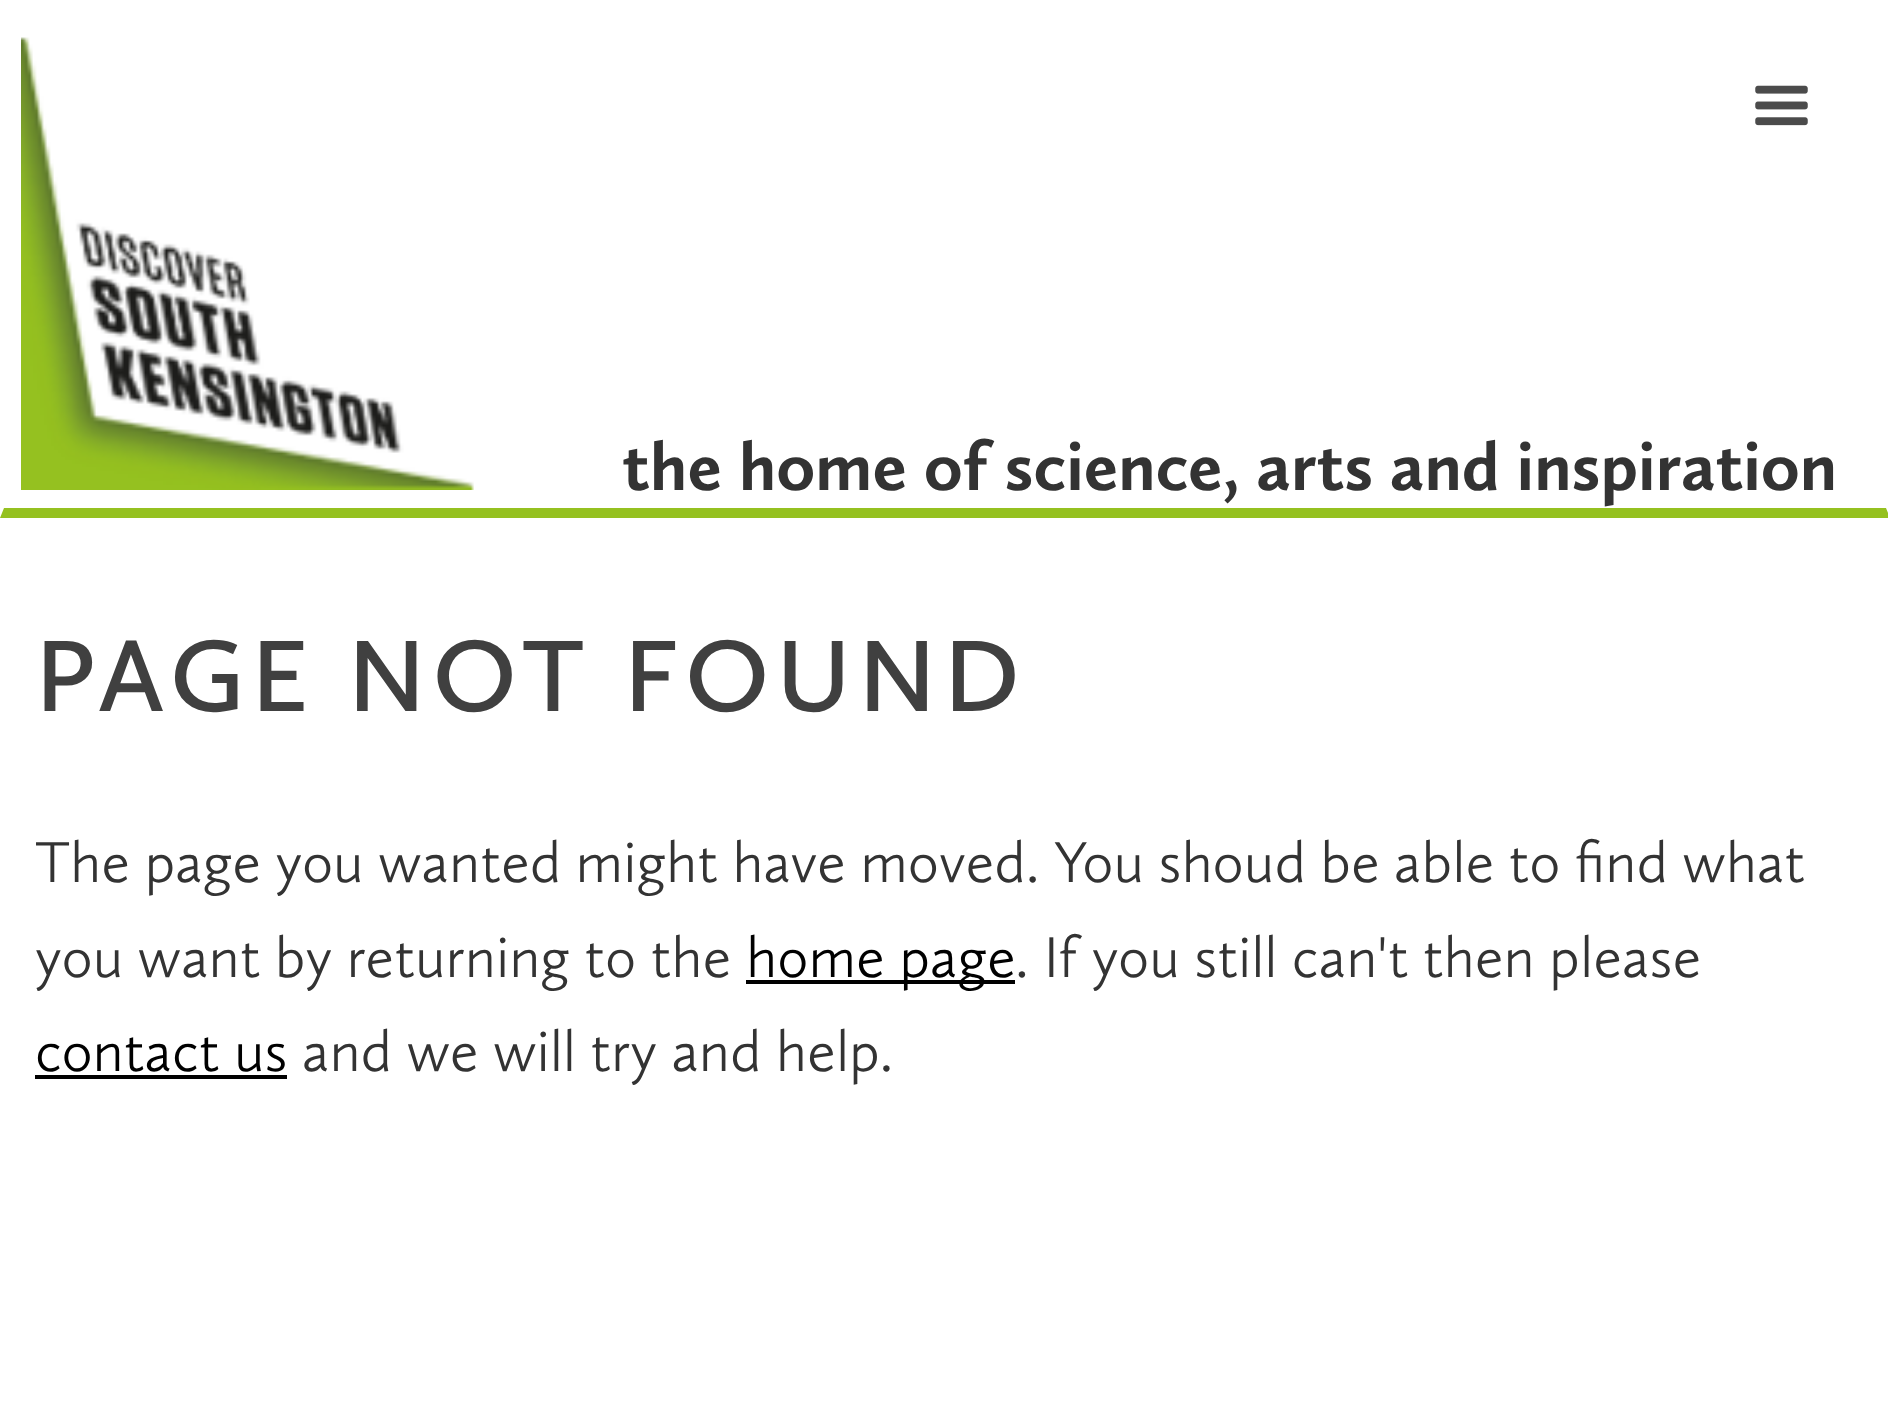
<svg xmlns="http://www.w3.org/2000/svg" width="1888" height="1423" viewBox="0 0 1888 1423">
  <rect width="100%" height="100%" fill="#ffffff"/>
  <path d="M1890 518H0L4 508H1886Z" fill="#95c120"/>
  <image x="21" y="37" width="453" height="453" href="img1.png"/>
  <image x="1755" y="85" width="53" height="41" href="img2.png"/>
  <text x="622" y="490" font-family="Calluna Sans" font-size="70" font-weight="bold" fill="#333333">the home of science, arts and inspiration</text>
  <text x="35" y="711" font-family="Calluna Sans" font-size="105" font-weight="600" letter-spacing="7" fill="#404040">PAGE NOT FOUND</text>
  <text x="35" y="882" font-family="Calluna Sans" font-size="59.5" font-weight="300" fill="#333333">The page you wanted might have moved. You shoud be able to find what</text>
  <text x="35" y="977" font-family="Calluna Sans" font-size="59.5" font-weight="300" fill="#333333">you want by returning to the</text>
  <rect x="746" y="980" width="269" height="4" fill="#000000"/>
  <text x="746" y="977" font-family="Calluna Sans" font-size="59.5" font-weight="300" fill="#000000">home page</text>
  <text x="1015" y="977" font-family="Calluna Sans" font-size="59.5" font-weight="300" fill="#333333">. If you still can't then please</text>
  <text x="35" y="1071" font-family="Calluna Sans" font-size="59.5" font-weight="300" fill="#000000">contact us</text>
  <rect x="35" y="1075" width="252" height="4" fill="#000000"/>
  <text x="302" y="1071" font-family="Calluna Sans" font-size="59.5" font-weight="300" fill="#333333">and we will try and help.</text>
</svg>
